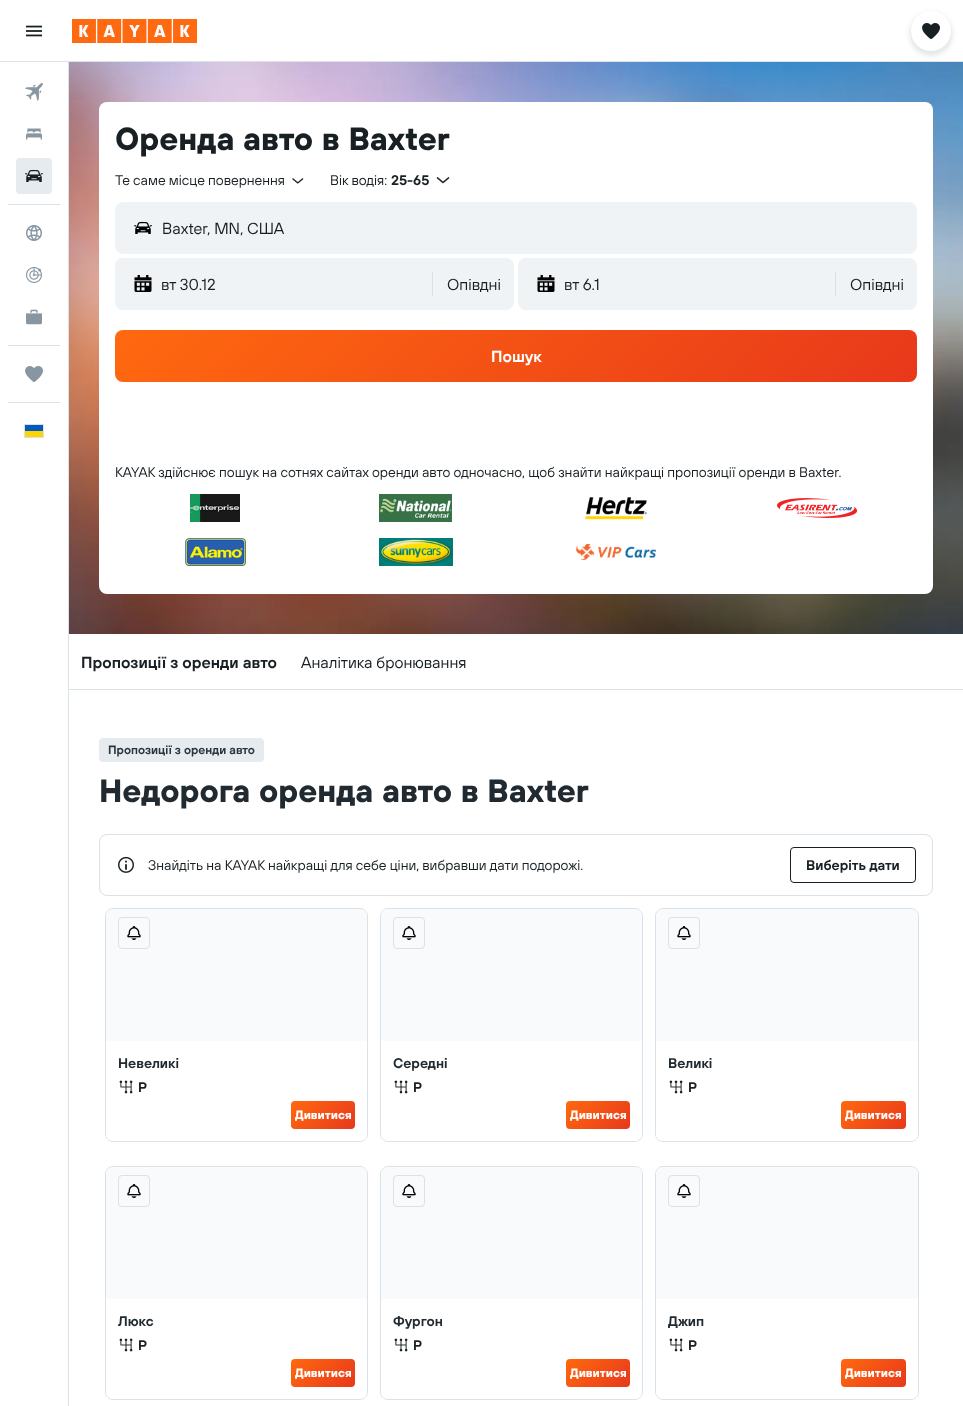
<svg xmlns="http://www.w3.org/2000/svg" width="963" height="1406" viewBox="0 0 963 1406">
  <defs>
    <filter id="blur1" x="-50%" y="-200%" width="200%" height="500%"><feGaussianBlur stdDeviation="3"/></filter>
    <linearGradient id="g1" gradientUnits="userSpaceOnUse" x1="303" y1="143" x2="730" y2="570"><stop offset="0" stop-color="#ff690f"/><stop offset="1" stop-color="#e8381b"/></linearGradient>
    <linearGradient id="g2" gradientUnits="userSpaceOnUse" x1="300" y1="1092" x2="346" y2="1138"><stop offset="0" stop-color="#ff690f"/><stop offset="1" stop-color="#e8381b"/></linearGradient>
    <linearGradient id="g3" gradientUnits="userSpaceOnUse" x1="575" y1="1092" x2="621" y2="1138"><stop offset="0" stop-color="#ff690f"/><stop offset="1" stop-color="#e8381b"/></linearGradient>
    <linearGradient id="g4" gradientUnits="userSpaceOnUse" x1="850" y1="1092" x2="897" y2="1138"><stop offset="0" stop-color="#ff690f"/><stop offset="1" stop-color="#e8381b"/></linearGradient>
    <linearGradient id="g5" gradientUnits="userSpaceOnUse" x1="300" y1="1350" x2="346" y2="1396"><stop offset="0" stop-color="#ff690f"/><stop offset="1" stop-color="#e8381b"/></linearGradient>
    <linearGradient id="g6" gradientUnits="userSpaceOnUse" x1="575" y1="1350" x2="621" y2="1396"><stop offset="0" stop-color="#ff690f"/><stop offset="1" stop-color="#e8381b"/></linearGradient>
    <linearGradient id="g7" gradientUnits="userSpaceOnUse" x1="850" y1="1350" x2="897" y2="1396"><stop offset="0" stop-color="#ff690f"/><stop offset="1" stop-color="#e8381b"/></linearGradient>
  </defs>
  <rect width="100%" height="100%" fill="#ffffff"/>
  <rect x="0" y="61" width="963" height="1" fill="#d9e2e8"/>
  <image x="26" y="25" width="16" height="12" href="img1.png"/>
  <image x="72" y="19" width="125" height="24" href="img2.png"/>
  <image x="69" y="62" width="894" height="572" href="img11.png"/>
  <rect x="911" y="14" width="40" height="40" rx="20" fill="#192024" fill-opacity="0.16" filter="url(#blur1)"/>
  <circle cx="931" cy="31" r="20" fill="#ffffff"/>
  <image x="922" y="23" width="18" height="16" href="img3.png"/>
  <rect x="68" y="62" width="1" height="1344" fill="#d9e2e8"/>
  <image x="25" y="83" width="18" height="18" href="img4.png"/>
  <image x="26" y="128" width="16" height="12" href="img5.png"/>
  <rect x="16" y="158" width="36" height="36" rx="4" fill="#e6ebef"/>
  <image x="25" y="169" width="18" height="13" href="img6.png"/>
  <rect x="8" y="204" width="52" height="1" fill="#d9e2e8"/>
  <image x="26" y="225" width="16" height="16" href="img7.png"/>
  <image x="26" y="267" width="16" height="16" href="img8.png"/>
  <image x="26" y="309" width="16" height="16" href="img9.png"/>
  <rect x="8" y="345" width="52" height="1" fill="#d9e2e8"/>
  <image x="25" y="366" width="18" height="16" href="img10.png"/>
  <rect x="8" y="402" width="52" height="1" fill="#d9e2e8"/>
  <rect x="24.5" y="424.5" width="19" height="13" fill="none" stroke="#d9e2e8"/>
  <rect x="25" y="425" width="18" height="6" fill="#005bbb"/>
  <rect x="25" y="431" width="18" height="6" fill="#ffd500"/>
  <rect x="99" y="102" width="834" height="492" rx="8" fill="#ffffff"/>
  <text x="115" y="150" font-family="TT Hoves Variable" font-size="32" font-weight="bold" fill="#192024">Оренда авто в Baxter</text>
  <text x="115" y="185" font-family="TT Hoves Variable" font-size="14" fill="#192024">Те саме місце повернення</text>
  <image x="292" y="178" width="12" height="6" href="img12.png"/>
  <text x="330" y="185" font-family="TT Hoves Variable" font-size="14" fill="#192024">Вік водія:</text>
  <text x="391" y="185" font-family="TT Hoves Variable" font-size="14" font-weight="600" fill="#192024">25-65</text>
  <image x="436" y="177" width="14" height="7" href="img13.png"/>
  <rect x="115.5" y="202.5" width="801" height="51" rx="7.5" fill="#f0f3f5" stroke="#f0f3f5"/>
  <image x="134" y="221" width="18" height="13" href="img14.png"/>
  <text x="162" y="234" font-family="TT Hoves Variable" font-size="16" fill="#192024">Baxter, MN, США</text>
  <rect x="115" y="258" width="399" height="52" rx="8" fill="#f0f3f5"/>
  <rect x="115" y="258" width="316" height="52" rx="8" fill="#f0f3f5"/>
  <image x="134" y="275" width="18" height="17" href="img15.png"/>
  <text x="161" y="290" font-family="TT Hoves Variable" font-size="16" fill="#192024">вт 30.12</text>
  <rect x="432" y="272" width="1" height="24" fill="#d9e2e8"/>
  <text x="447" y="290" font-family="TT Hoves Variable" font-size="16" fill="#192024">Опівдні</text>
  <rect x="518" y="258" width="399" height="52" rx="8" fill="#f0f3f5"/>
  <rect x="518" y="258" width="316" height="52" rx="8" fill="#f0f3f5"/>
  <image x="537" y="275" width="18" height="17" href="img15.png"/>
  <text x="564" y="290" font-family="TT Hoves Variable" font-size="16" fill="#192024">вт 6.1</text>
  <rect x="835" y="272" width="1" height="24" fill="#d9e2e8"/>
  <text x="850" y="290" font-family="TT Hoves Variable" font-size="16" fill="#192024">Опівдні</text>
  <rect x="115" y="330" width="802" height="52" rx="8" fill="url(#g1)"/>
  <text x="491" y="362" font-family="TT Hoves Variable" font-size="16" font-weight="600" fill="#ffffff">Пошук</text>
  <text x="115" y="477" font-family="TT Hoves Variable" font-size="14" fill="#192024">KAYAK здійснює пошук на сотнях сайтах оренди авто одночасно, щоб знайти найкращі пропозиції оренди в Baxter.</text>
  <image x="190" y="494" width="50" height="28" href="img16.png"/>
  <image x="379" y="494" width="73" height="28" href="img17.png"/>
  <image x="585" y="497" width="62" height="23" href="img18.png"/>
  <image x="777" y="498" width="80" height="20" href="img19.png"/>
  <image x="185" y="538" width="61" height="28" href="img20.png"/>
  <image x="379" y="538" width="74" height="28" href="img21.png"/>
  <image x="576" y="544" width="80" height="16" href="img22.png"/>
  <rect x="69" y="689" width="894" height="1" fill="#d9e2e8"/>
  <text x="81" y="668" font-family="TT Hoves Variable" font-size="16" font-weight="600" fill="#192024">Пропозиції з оренди авто</text>
  <text x="301" y="668" font-family="TT Hoves Variable" font-size="16" fill="#192024">Аналітика бронювання</text>
  <rect x="99.5" y="738.5" width="164" height="23" rx="3.5" fill="#e6ebef" stroke="#e6ebef"/>
  <text x="108" y="754" font-family="TT Hoves Variable" font-size="12" font-weight="600" fill="#2c3439">Пропозиції з оренди авто</text>
  <text x="99" y="802" font-family="TT Hoves Variable" font-size="32" font-weight="bold" fill="#212a30">Недорога оренда авто в Baxter</text>
  <rect x="99.5" y="834.5" width="833" height="61" rx="7.5" fill="none" stroke="#d9e2e8"/>
  <image x="118" y="856" width="16" height="17" href="img23.png"/>
  <text x="148" y="870" font-family="TT Hoves Variable" font-size="14" fill="#192024">Знайдіть на KAYAK найкращі для себе ціни, вибравши дати подорожі.</text>
  <rect x="790.5" y="847.5" width="125" height="35" rx="3.5" fill="none" stroke="#192024"/>
  <text x="806" y="870" font-family="TT Hoves Variable" font-size="14" font-weight="600" fill="#192024">Виберіть дати</text>
  <rect x="105.5" y="908.5" width="262" height="233" rx="7.5" fill="none" stroke="#d9e2e8"/>
  <path d="M113 909H360C364 909 367 912 367 916V1041H106V916C106 912 109 909 113 909Z" fill="#f9fafb"/>
  <rect x="118.5" y="917.5" width="31" height="31" rx="3.5" fill="none" stroke="#d9e2e8"/>
  <image x="127" y="926" width="14" height="14" href="img24.png"/>
  <path d="M106 1041H367V1134C367 1138 364 1141 360 1141H113C109 1141 106 1138 106 1134Z" fill="#ffffff"/>
  <text x="118" y="1068" font-family="TT Hoves Variable" font-size="14" font-weight="600" fill="#212a30">Невеликі</text>
  <image x="119" y="1080" width="14" height="14" href="img25.png"/>
  <text x="138" y="1092" font-family="TT Hoves Variable" font-size="14" font-weight="600" fill="#192024">Р</text>
  <rect x="291" y="1101" width="64" height="28" rx="4" fill="url(#g2)"/>
  <text x="295" y="1119" font-family="TT Hoves Variable" font-size="12" font-weight="bold" fill="#ffffff">Дивитися</text>
  <rect x="380.5" y="908.5" width="262" height="233" rx="7.5" fill="none" stroke="#d9e2e8"/>
  <path d="M388 909H635C639 909 642 912 642 916V1041H381V916C381 912 384 909 388 909Z" fill="#f9fafb"/>
  <rect x="393.5" y="917.5" width="31" height="31" rx="3.5" fill="none" stroke="#d9e2e8"/>
  <image x="402" y="926" width="14" height="14" href="img24.png"/>
  <path d="M381 1041H642V1134C642 1138 639 1141 635 1141H388C384 1141 381 1138 381 1134Z" fill="#ffffff"/>
  <text x="393" y="1068" font-family="TT Hoves Variable" font-size="14" font-weight="600" fill="#212a30">Середні</text>
  <image x="394" y="1080" width="14" height="14" href="img25.png"/>
  <text x="413" y="1092" font-family="TT Hoves Variable" font-size="14" font-weight="600" fill="#192024">Р</text>
  <rect x="566" y="1101" width="64" height="28" rx="4" fill="url(#g3)"/>
  <text x="570" y="1119" font-family="TT Hoves Variable" font-size="12" font-weight="bold" fill="#ffffff">Дивитися</text>
  <rect x="655.5" y="908.5" width="263" height="233" rx="7.5" fill="none" stroke="#d9e2e8"/>
  <path d="M663 909H911C915 909 918 912 918 916V1041H656V916C656 912 659 909 663 909Z" fill="#f9fafb"/>
  <rect x="668.5" y="917.5" width="31" height="31" rx="3.5" fill="none" stroke="#d9e2e8"/>
  <image x="677" y="926" width="14" height="14" href="img24.png"/>
  <path d="M656 1041H918V1134C918 1138 915 1141 911 1141H663C659 1141 656 1138 656 1134Z" fill="#ffffff"/>
  <text x="668" y="1068" font-family="TT Hoves Variable" font-size="14" font-weight="600" fill="#212a30">Великі</text>
  <image x="669" y="1080" width="14" height="14" href="img25.png"/>
  <text x="688" y="1092" font-family="TT Hoves Variable" font-size="14" font-weight="600" fill="#192024">Р</text>
  <rect x="841" y="1101" width="65" height="28" rx="4" fill="url(#g4)"/>
  <text x="845" y="1119" font-family="TT Hoves Variable" font-size="12" font-weight="bold" fill="#ffffff">Дивитися</text>
  <rect x="105.5" y="1166.5" width="262" height="233" rx="7.5" fill="none" stroke="#d9e2e8"/>
  <path d="M113 1167H360C364 1167 367 1170 367 1174V1299H106V1174C106 1170 109 1167 113 1167Z" fill="#f9fafb"/>
  <rect x="118.5" y="1175.5" width="31" height="31" rx="3.5" fill="none" stroke="#d9e2e8"/>
  <image x="127" y="1184" width="14" height="14" href="img24.png"/>
  <path d="M106 1299H367V1392C367 1396 364 1399 360 1399H113C109 1399 106 1396 106 1392Z" fill="#ffffff"/>
  <text x="118" y="1326" font-family="TT Hoves Variable" font-size="14" font-weight="600" fill="#212a30">Люкс</text>
  <image x="119" y="1338" width="14" height="14" href="img25.png"/>
  <text x="138" y="1350" font-family="TT Hoves Variable" font-size="14" font-weight="600" fill="#192024">Р</text>
  <rect x="291" y="1359" width="64" height="28" rx="4" fill="url(#g5)"/>
  <text x="295" y="1377" font-family="TT Hoves Variable" font-size="12" font-weight="bold" fill="#ffffff">Дивитися</text>
  <rect x="380.5" y="1166.5" width="262" height="233" rx="7.5" fill="none" stroke="#d9e2e8"/>
  <path d="M388 1167H635C639 1167 642 1170 642 1174V1299H381V1174C381 1170 384 1167 388 1167Z" fill="#f9fafb"/>
  <rect x="393.5" y="1175.5" width="31" height="31" rx="3.5" fill="none" stroke="#d9e2e8"/>
  <image x="402" y="1184" width="14" height="14" href="img24.png"/>
  <path d="M381 1299H642V1392C642 1396 639 1399 635 1399H388C384 1399 381 1396 381 1392Z" fill="#ffffff"/>
  <text x="393" y="1326" font-family="TT Hoves Variable" font-size="14" font-weight="600" fill="#212a30">Фургон</text>
  <image x="394" y="1338" width="14" height="14" href="img25.png"/>
  <text x="413" y="1350" font-family="TT Hoves Variable" font-size="14" font-weight="600" fill="#192024">Р</text>
  <rect x="566" y="1359" width="64" height="28" rx="4" fill="url(#g6)"/>
  <text x="570" y="1377" font-family="TT Hoves Variable" font-size="12" font-weight="bold" fill="#ffffff">Дивитися</text>
  <rect x="655.5" y="1166.5" width="263" height="233" rx="7.5" fill="none" stroke="#d9e2e8"/>
  <path d="M663 1167H911C915 1167 918 1170 918 1174V1299H656V1174C656 1170 659 1167 663 1167Z" fill="#f9fafb"/>
  <rect x="668.5" y="1175.5" width="31" height="31" rx="3.5" fill="none" stroke="#d9e2e8"/>
  <image x="677" y="1184" width="14" height="14" href="img24.png"/>
  <path d="M656 1299H918V1392C918 1396 915 1399 911 1399H663C659 1399 656 1396 656 1392Z" fill="#ffffff"/>
  <text x="668" y="1326" font-family="TT Hoves Variable" font-size="14" font-weight="600" fill="#212a30">Джип</text>
  <image x="669" y="1338" width="14" height="14" href="img25.png"/>
  <text x="688" y="1350" font-family="TT Hoves Variable" font-size="14" font-weight="600" fill="#192024">Р</text>
  <rect x="841" y="1359" width="65" height="28" rx="4" fill="url(#g7)"/>
  <text x="845" y="1377" font-family="TT Hoves Variable" font-size="12" font-weight="bold" fill="#ffffff">Дивитися</text>
</svg>
